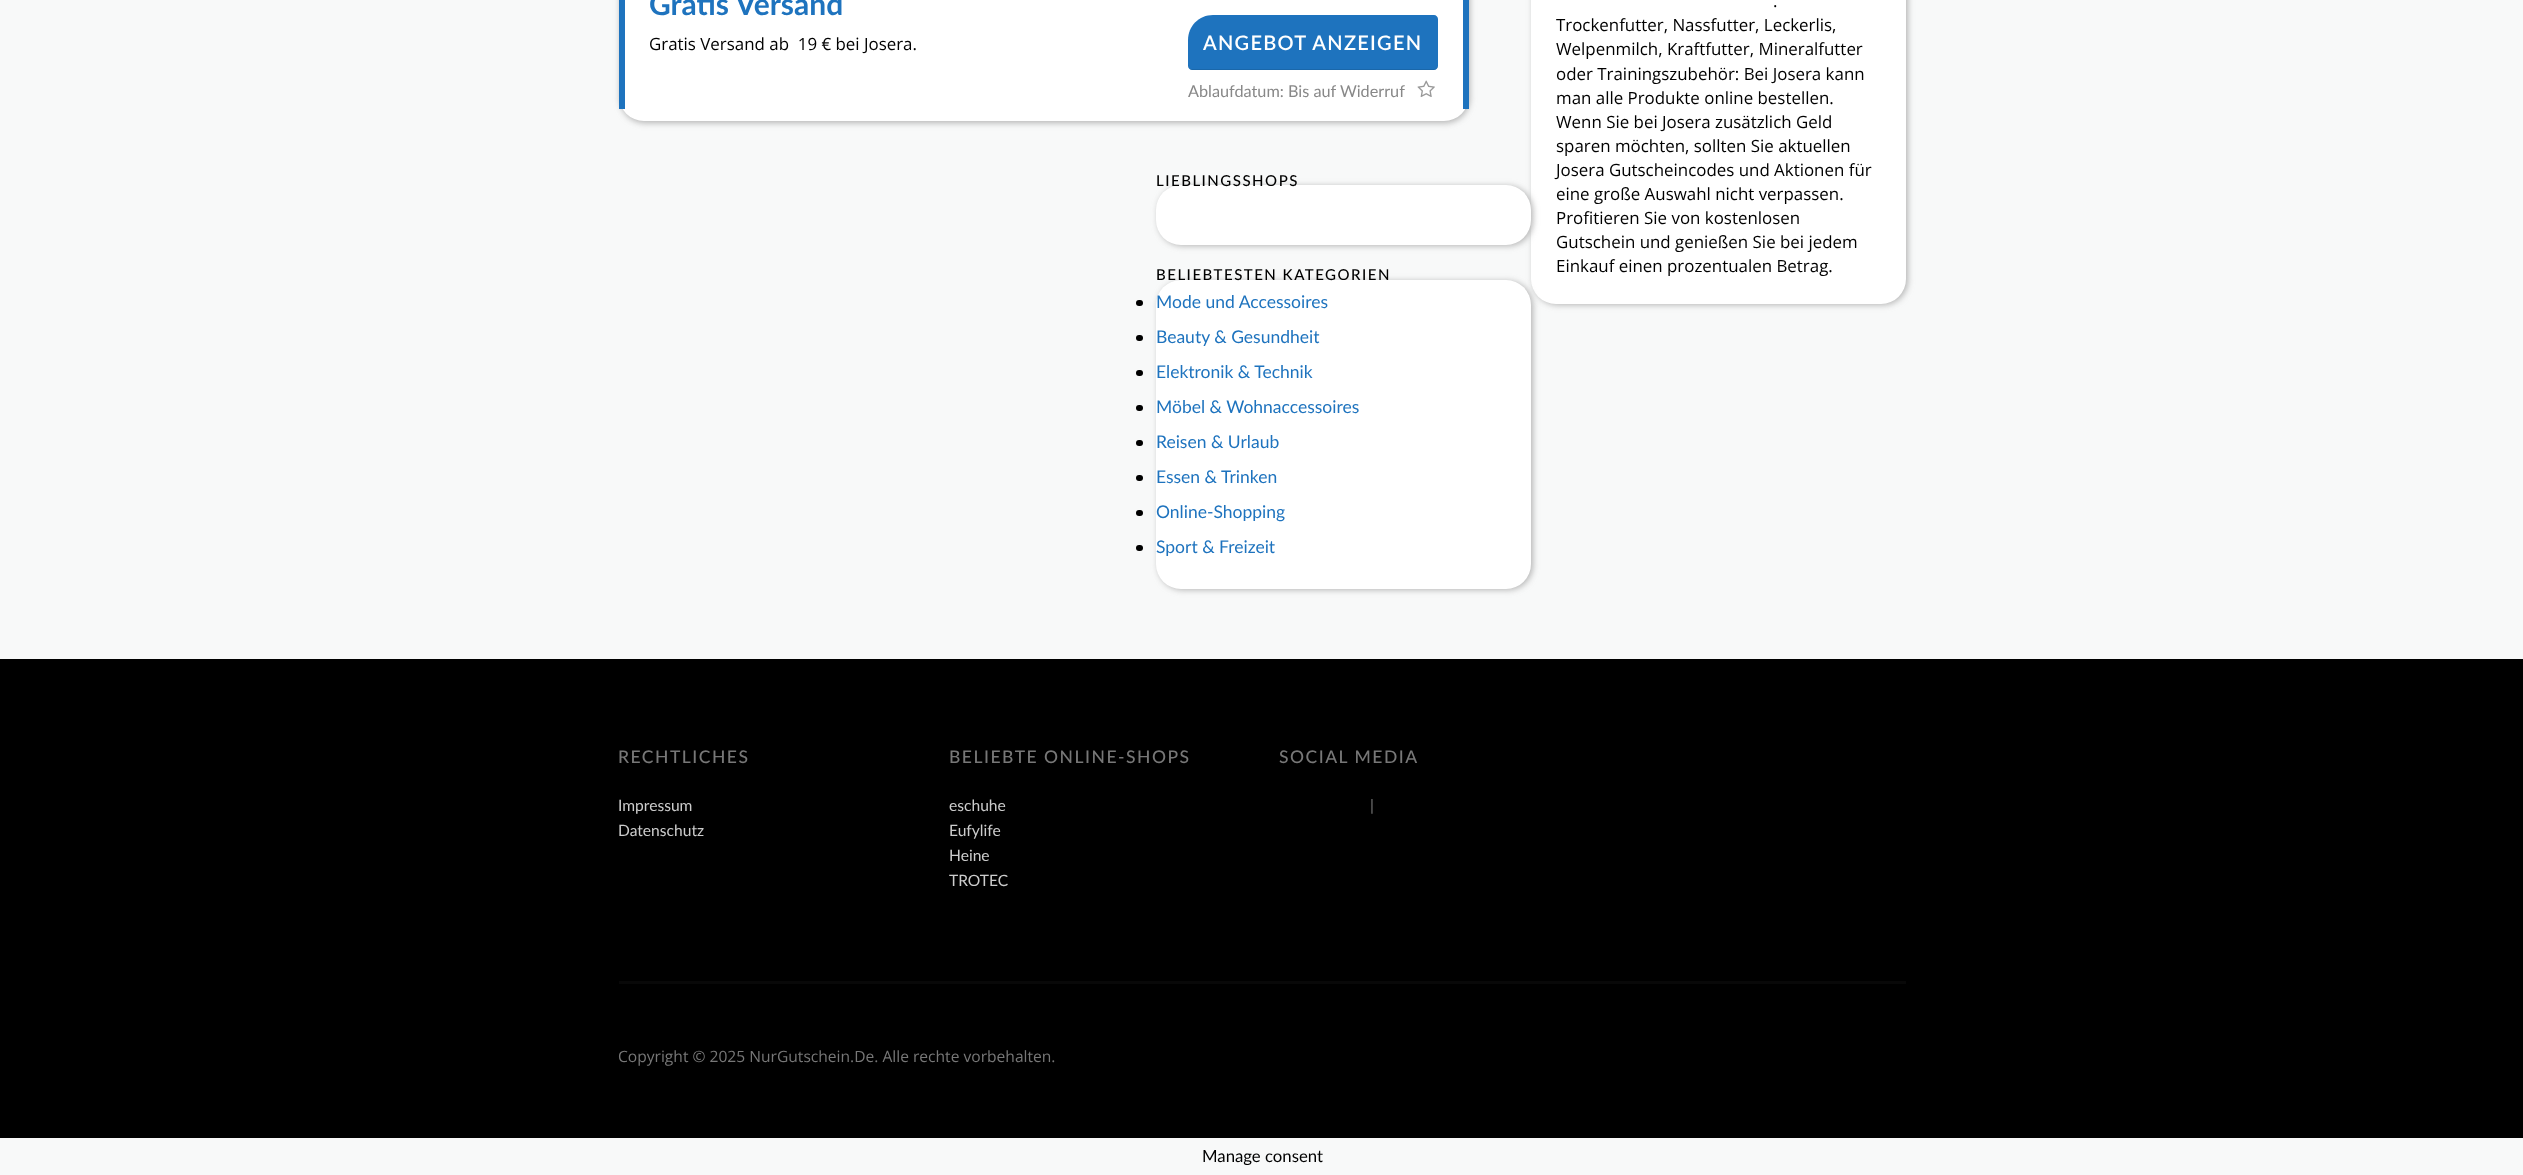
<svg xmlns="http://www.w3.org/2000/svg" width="2523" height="1175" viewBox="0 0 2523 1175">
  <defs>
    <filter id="blur1" x="-50%" y="-200%" width="200%" height="500%"><feGaussianBlur stdDeviation="3"/></filter>
  </defs>
  <rect width="100%" height="100%" fill="#f8f9f9"/>
  <rect x="620" y="-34" width="850" height="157" rx="25" fill="#b4b4b4" filter="url(#blur1)"/>
  <rect x="619" y="-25" width="850" height="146" rx="25" fill="#ffffff"/>
  <rect x="1463" y="0" width="6" height="109" fill="#1e73be"/>
  <rect x="619" y="0" width="6" height="109" fill="#1e73be"/>
  <text x="649" y="15" font-family="Lato" font-size="30" font-weight="bold" fill="#1e73be">Gratis Versand</text>
  <text x="649" y="50" font-family="Open Sans" font-size="16.9" fill="#000000" xml:space="preserve">Gratis Versand ab  19 € bei Josera.</text>
  <path d="M1213 15H1434C1436 15 1438 17 1438 19V66C1438 68 1436 70 1434 70H1192C1190 70 1188 68 1188 66V40C1188 26 1199 15 1213 15Z" fill="#1e73be"/>
  <path d="M1188 65V66C1188 68 1190 70 1192 70H1434C1436 70 1438 68 1438 66V65C1438 67 1436 69 1434 69H1191C1189 69 1188 67 1188 65Z" fill="#000000" fill-opacity="0.1"/>
  <text x="1203" y="50" font-family="Lato" font-size="20" font-weight="600" letter-spacing="1.25" fill="#ffffff">ANGEBOT ANZEIGEN</text>
  <text x="1188" y="97" font-family="Lato" font-size="16.25" fill="#888888">Ablaufdatum: Bis auf Widerruf</text>
  <image x="1417" y="80" width="18" height="17" href="img1.png"/>
  <rect x="1533" y="-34" width="375" height="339" rx="25" fill="#b4b4b4" filter="url(#blur1)"/>
  <rect x="1531" y="-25" width="375" height="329" rx="25" fill="#ffffff"/>
  <text x="1773" y="7" font-family="Open Sans" font-size="16.9" fill="#000000">.</text>
  <text x="1556" y="31" font-family="Open Sans" font-size="16.9" fill="#000000">Trockenfutter, Nassfutter, Leckerlis,</text>
  <text x="1556" y="55" font-family="Open Sans" font-size="16.9" fill="#000000">Welpenmilch, Kraftfutter, Mineralfutter</text>
  <text x="1556" y="80" font-family="Open Sans" font-size="16.9" fill="#000000">oder Trainingszubehör: Bei Josera kann</text>
  <text x="1556" y="104" font-family="Open Sans" font-size="16.9" fill="#000000">man alle Produkte online bestellen.</text>
  <text x="1556" y="128" font-family="Open Sans" font-size="16.9" fill="#000000">Wenn Sie bei Josera zusätzlich Geld</text>
  <text x="1556" y="152" font-family="Open Sans" font-size="16.9" fill="#000000">sparen möchten, sollten Sie aktuellen</text>
  <text x="1556" y="176" font-family="Open Sans" font-size="16.9" fill="#000000">Josera Gutscheincodes und Aktionen für</text>
  <text x="1556" y="200" font-family="Open Sans" font-size="16.9" fill="#000000">eine große Auswahl nicht verpassen.</text>
  <text x="1556" y="224" font-family="Open Sans" font-size="16.9" fill="#000000">Profitieren Sie von kostenlosen</text>
  <text x="1556" y="248" font-family="Open Sans" font-size="16.9" fill="#000000">Gutschein und genießen Sie bei jedem</text>
  <text x="1556" y="272" font-family="Open Sans" font-size="16.9" fill="#000000">Einkauf einen prozentualen Betrag.</text>
  <rect x="1158" y="186" width="375" height="60" rx="25" fill="#b4b4b4" filter="url(#blur1)"/>
  <rect x="1156" y="185" width="375" height="60" rx="25" fill="#ffffff"/>
  <text x="1156" y="186" font-family="Lato" font-size="15" font-weight="500" letter-spacing="1.5" fill="#000000">LIEBLINGSSHOPS</text>
  <rect x="1158" y="281" width="375" height="309" rx="25" fill="#b4b4b4" filter="url(#blur1)"/>
  <rect x="1156" y="280" width="375" height="309" rx="25" fill="#ffffff"/>
  <text x="1156" y="280" font-family="Lato" font-size="15" font-weight="500" letter-spacing="1.5" fill="#000000">BELIEBTESTEN KATEGORIEN</text>
  <rect x="1136" y="300" width="7" height="6" rx="3" fill="#000000"/>
  <text x="1156" y="308" font-family="Lato" font-size="17.5" fill="#1e73be">Mode und Accessoires</text>
  <rect x="1136" y="335" width="7" height="6" rx="3" fill="#000000"/>
  <text x="1156" y="343" font-family="Lato" font-size="17.5" fill="#1e73be">Beauty &amp; Gesundheit</text>
  <rect x="1136" y="370" width="7" height="6" rx="3" fill="#000000"/>
  <text x="1156" y="378" font-family="Lato" font-size="17.5" fill="#1e73be">Elektronik &amp; Technik</text>
  <rect x="1136" y="405" width="7" height="6" rx="3" fill="#000000"/>
  <text x="1156" y="413" font-family="Lato" font-size="17.5" fill="#1e73be">Möbel &amp; Wohnaccessoires</text>
  <rect x="1136" y="440" width="7" height="6" rx="3" fill="#000000"/>
  <text x="1156" y="448" font-family="Lato" font-size="17.5" fill="#1e73be">Reisen &amp; Urlaub</text>
  <rect x="1136" y="475" width="7" height="6" rx="3" fill="#000000"/>
  <text x="1156" y="483" font-family="Lato" font-size="17.5" fill="#1e73be">Essen &amp; Trinken</text>
  <rect x="1136" y="510" width="7" height="6" rx="3" fill="#000000"/>
  <text x="1156" y="518" font-family="Lato" font-size="17.5" fill="#1e73be">Online-Shopping</text>
  <rect x="1136" y="545" width="7" height="6" rx="3" fill="#000000"/>
  <text x="1156" y="553" font-family="Lato" font-size="17.5" fill="#1e73be">Sport &amp; Freizeit</text>
  <rect x="0" y="659" width="2523" height="479" fill="#000000"/>
  <text x="618" y="763" font-family="Lato" font-size="17.5" font-weight="500" letter-spacing="1.5" fill="#777777">RECHTLICHES</text>
  <text x="618" y="811" font-family="Lato" font-size="15.6" fill="#cccccc">Impressum</text>
  <text x="618" y="836" font-family="Lato" font-size="15.6" fill="#cccccc">Datenschutz</text>
  <text x="949" y="763" font-family="Lato" font-size="17.5" font-weight="500" letter-spacing="1.5" fill="#777777">BELIEBTE ONLINE-SHOPS</text>
  <text x="949" y="811" font-family="Lato" font-size="15.6" fill="#cccccc">eschuhe</text>
  <text x="949" y="836" font-family="Lato" font-size="15.6" fill="#cccccc">Eufylife</text>
  <text x="949" y="861" font-family="Lato" font-size="15.6" fill="#cccccc">Heine</text>
  <text x="949" y="886" font-family="Lato" font-size="15.6" fill="#cccccc">TROTEC</text>
  <text x="1279" y="763" font-family="Lato" font-size="17.5" font-weight="500" letter-spacing="1.5" fill="#777777">SOCIAL MEDIA</text>
  <text x="1370" y="811" font-family="Lato" font-size="15.6" fill="#777777">|</text>
  <rect x="619" y="981" width="1287" height="3" fill="#080808"/>
  <text x="618" y="1062" font-family="Open Sans" font-size="15.6" fill="#777777">Copyright © 2025 NurGutschein.De. Alle rechte vorbehalten.</text>
  <text x="1202" y="1162" font-family="Lato" font-size="16.75" fill="#000000">Manage consent</text>
</svg>
